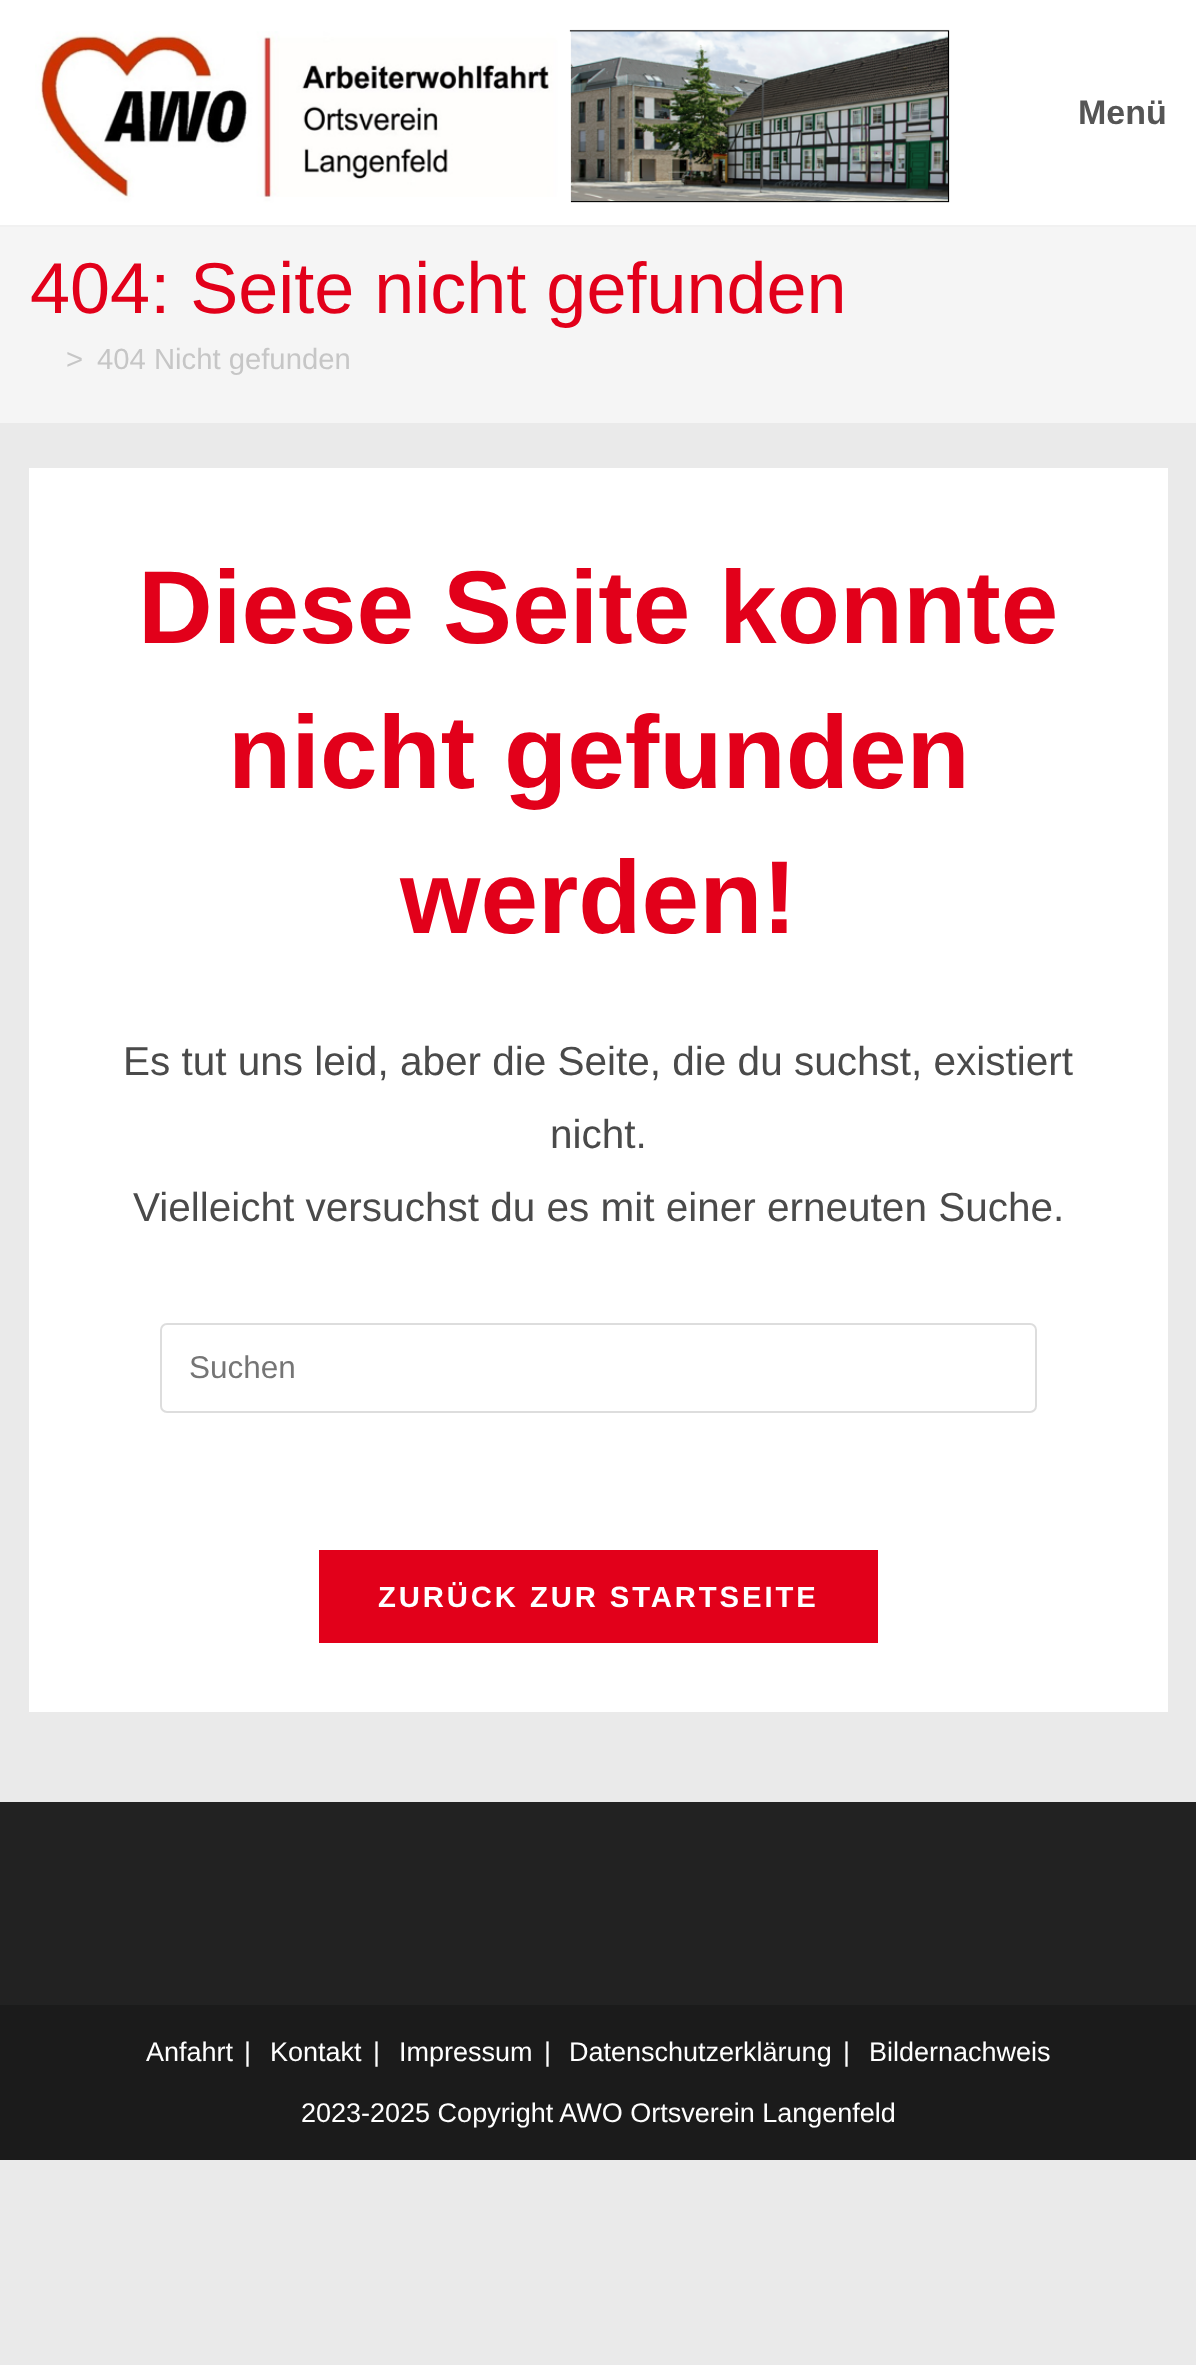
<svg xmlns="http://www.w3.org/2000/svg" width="1196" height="2365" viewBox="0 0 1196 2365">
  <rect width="100%" height="100%" fill="#eaeaea"/>
  <rect x="0" y="0" width="1196" height="225" fill="#ffffff"/>
  <rect x="0" y="225" width="1196" height="2" fill="#f1f1f1"/>
  <image x="35" y="29" width="915" height="174" href="img1.png"/>
  <text x="1078" y="124" font-family="Liberation Sans" font-size="34" font-weight="bold" fill="#555555">Menü</text>
  <rect x="0" y="227" width="1196" height="196" fill="#f5f5f5"/>
  <text x="30" y="313" font-family="Liberation Sans" font-size="72" fill="#e2001a">404: Seite nicht gefunden</text>
  <text x="66" y="369" font-family="Liberation Sans" font-size="29.25" fill="#c6c6c6">&gt;</text>
  <text x="97" y="369" font-family="Liberation Sans" font-size="29.25" fill="#c6c6c6">404 Nicht gefunden</text>
  <rect x="29" y="468" width="1139" height="1244" fill="#ffffff"/>
  <text x="138" y="643" font-family="Liberation Sans" font-size="103.5" font-weight="bold" fill="#e2001a">Diese Seite konnte</text>
  <text x="228" y="788" font-family="Liberation Sans" font-size="103.5" font-weight="bold" fill="#e2001a">nicht gefunden</text>
  <text x="400" y="933" font-family="Liberation Sans" font-size="103.5" font-weight="bold" fill="#e2001a">werden!</text>
  <text x="123" y="1075" font-family="Liberation Sans" font-size="40.5" fill="#4a4a4a">Es tut uns leid, aber die Seite, die du suchst, existiert</text>
  <text x="550" y="1148" font-family="Liberation Sans" font-size="40.5" fill="#4a4a4a">nicht.</text>
  <text x="133" y="1221" font-family="Liberation Sans" font-size="40.5" fill="#4a4a4a">Vielleicht versuchst du es mit einer erneuten Suche.</text>
  <rect x="161" y="1324" width="875" height="88" rx="6" fill="none" stroke="#dddddd" stroke-width="2"/>
  <text x="189" y="1378" font-family="Liberation Sans" font-size="31.5" fill="#757575">Suchen</text>
  <rect x="319" y="1550" width="559" height="93" fill="#e2001a"/>
  <text x="378" y="1607" font-family="Liberation Sans" font-size="29.25" font-weight="bold" letter-spacing="2.9" fill="#ffffff">ZURÜCK ZUR STARTSEITE</text>
  <rect x="0" y="1802" width="1196" height="203" fill="#222222"/>
  <rect x="0" y="2005" width="1196" height="155" fill="#1b1b1b"/>
  <text x="146" y="2061" font-family="Liberation Sans" font-size="27" fill="#ffffff">Anfahrt</text>
  <text x="244" y="2061" font-family="Liberation Sans" font-size="27" fill="#ffffff">|</text>
  <text x="270" y="2061" font-family="Liberation Sans" font-size="27" fill="#ffffff">Kontakt</text>
  <text x="373" y="2061" font-family="Liberation Sans" font-size="27" fill="#ffffff">|</text>
  <text x="399" y="2061" font-family="Liberation Sans" font-size="27" fill="#ffffff">Impressum</text>
  <text x="544" y="2061" font-family="Liberation Sans" font-size="27" fill="#ffffff">|</text>
  <text x="569" y="2061" font-family="Liberation Sans" font-size="27" fill="#ffffff">Datenschutzerklärung</text>
  <text x="843" y="2061" font-family="Liberation Sans" font-size="27" fill="#ffffff">|</text>
  <text x="869" y="2061" font-family="Liberation Sans" font-size="27" fill="#ffffff">Bildernachweis</text>
  <text x="301" y="2122" font-family="Liberation Sans" font-size="27" fill="#ffffff">2023-2025 Copyright AWO Ortsverein Langenfeld</text>
</svg>
